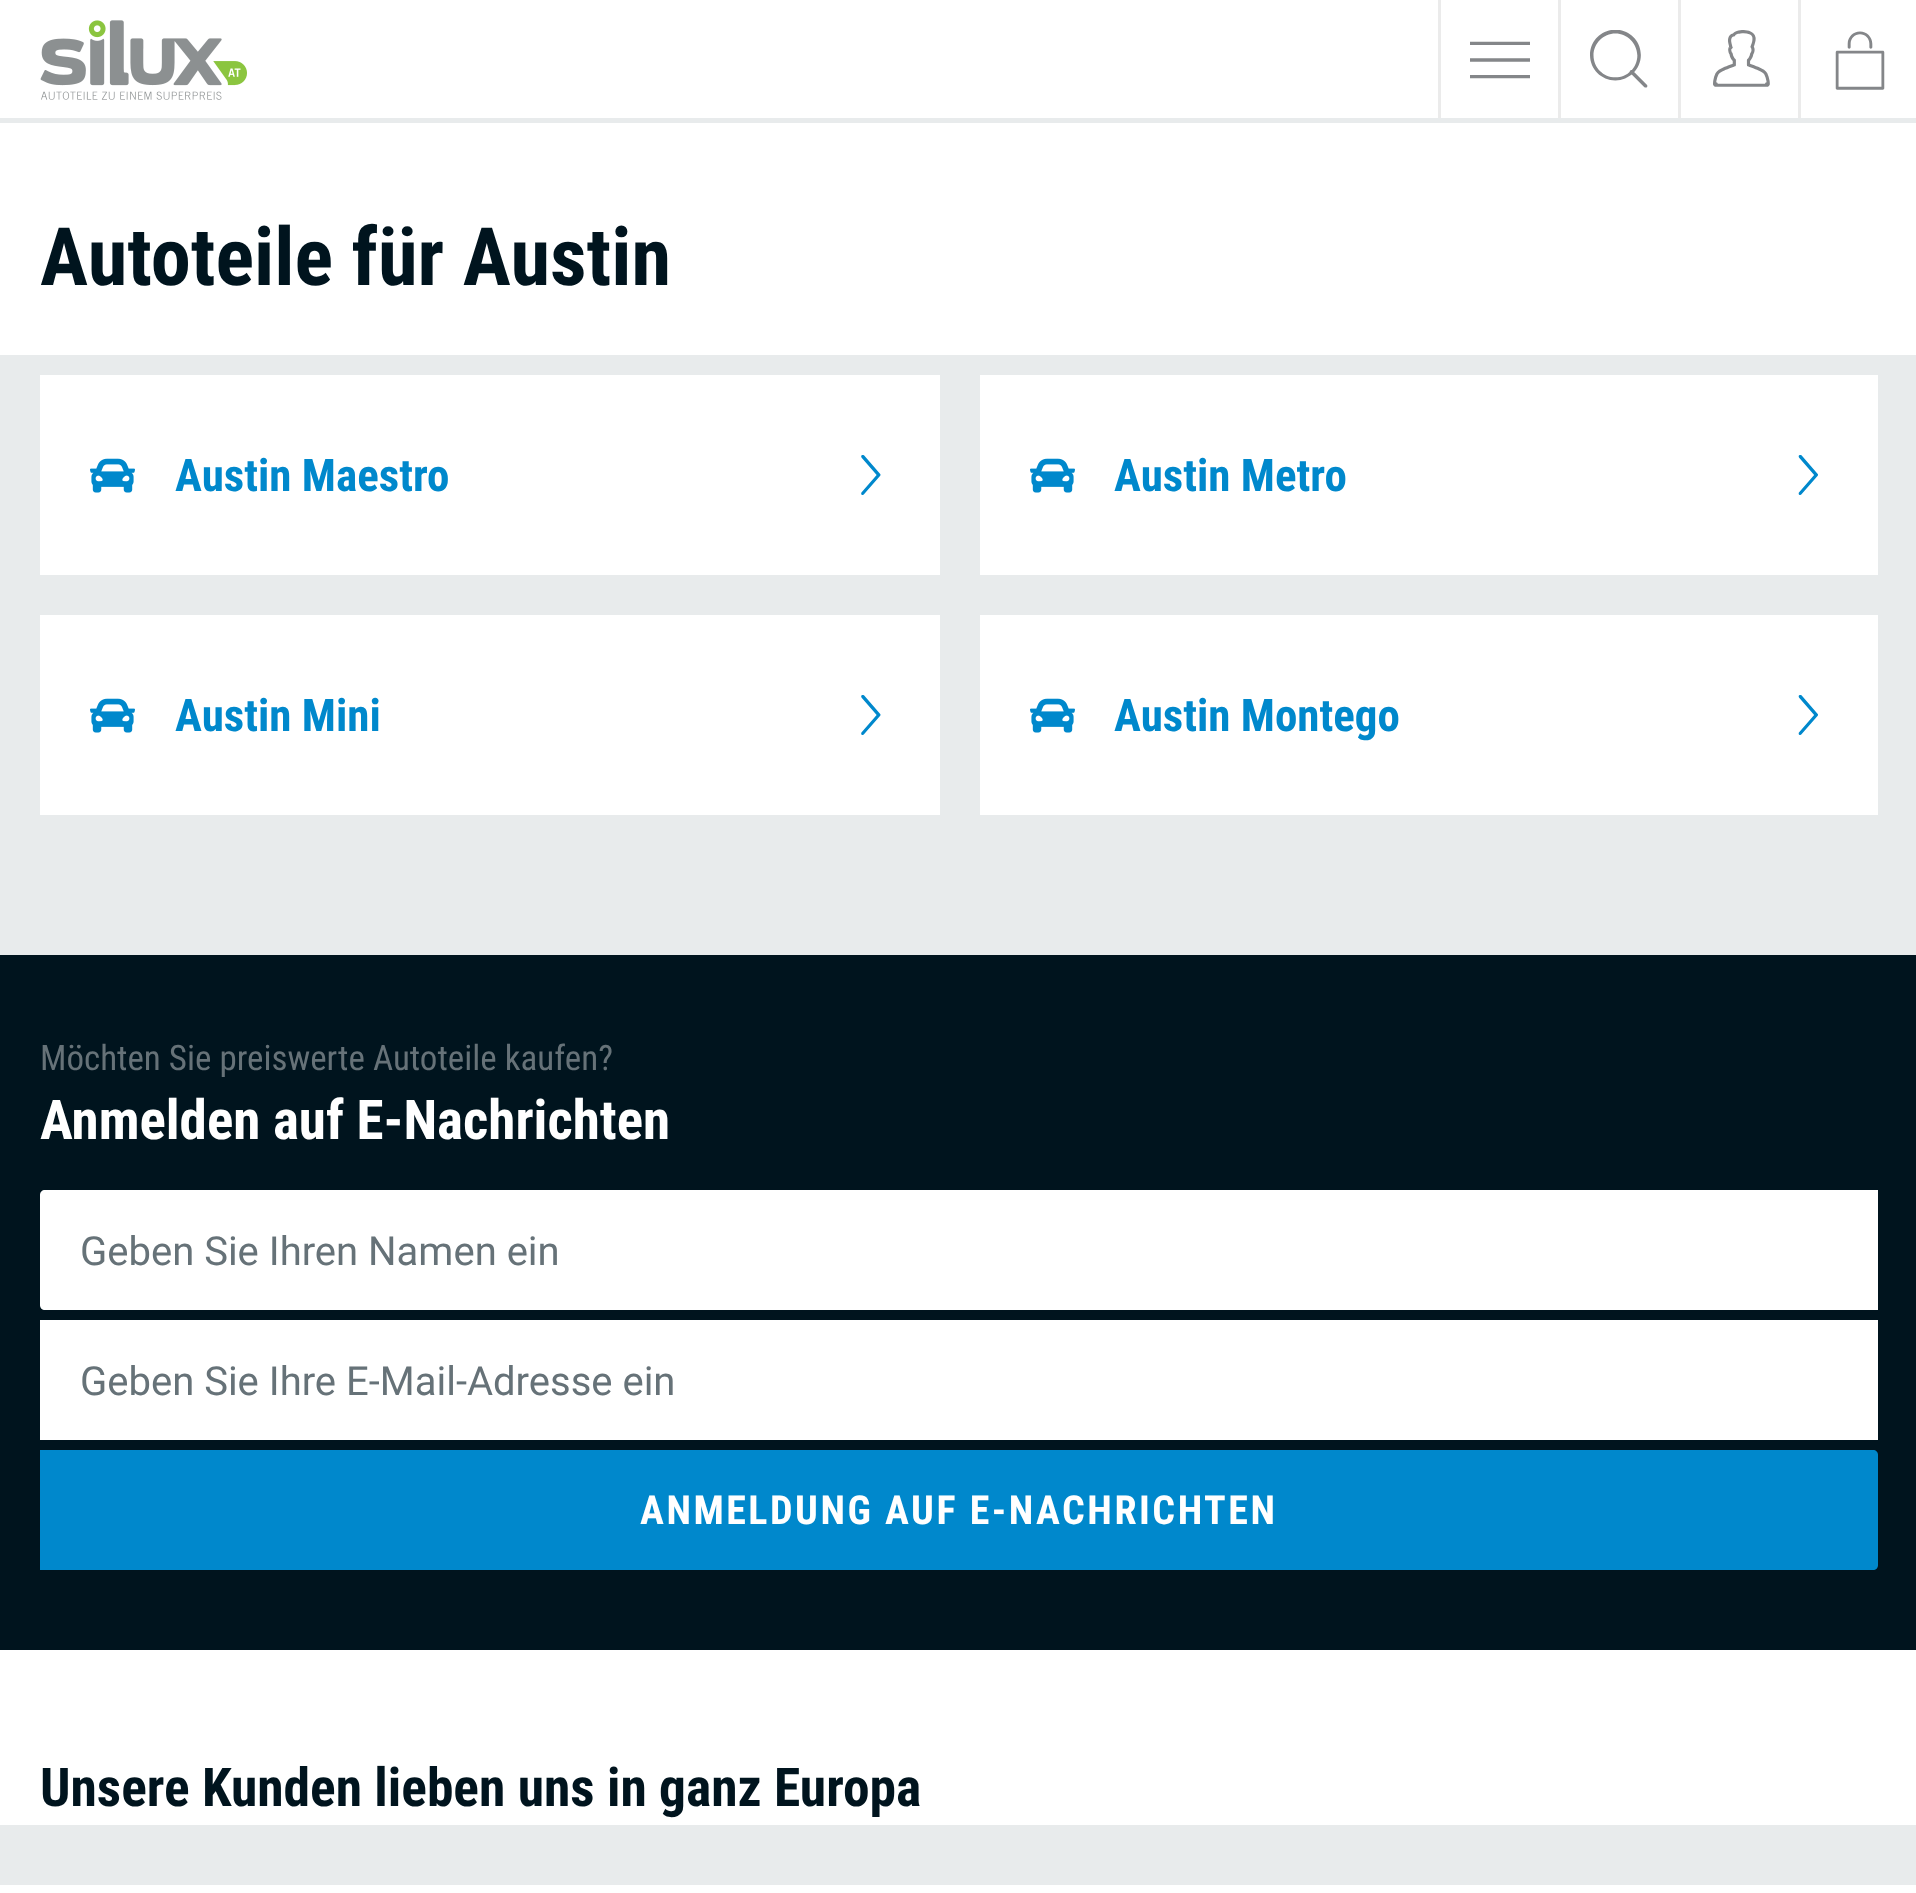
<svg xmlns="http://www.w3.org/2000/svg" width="1916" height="1893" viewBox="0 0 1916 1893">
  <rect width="100%" height="100%" fill="#e8ebec"/>
  <rect x="0" y="0" width="1916" height="118" fill="#ffffff"/>
  <image x="40" y="20" width="207" height="80" href="img1.png"/>
  <rect x="1438" y="0" width="3" height="118" fill="#ebebeb"/>
  <image x="1470" y="41" width="60" height="38" href="img2.png"/>
  <rect x="1558" y="0" width="3" height="118" fill="#ebebeb"/>
  <image x="1590" y="30" width="58" height="58" href="img3.png"/>
  <rect x="1678" y="0" width="3" height="118" fill="#ebebeb"/>
  <image x="1713" y="30" width="57" height="57" href="img4.png"/>
  <rect x="1798" y="0" width="3" height="118" fill="#ebebeb"/>
  <image x="1835" y="31" width="50" height="59" href="img5.png"/>
  <rect x="0" y="123" width="1916" height="232" fill="#ffffff"/>
  <text x="40" y="285" font-family="Roboto Condensed" font-size="80.5" font-weight="bold" fill="#00141e">Autoteile für Austin</text>
  <rect x="40" y="375" width="900" height="200" fill="#ffffff"/>
  <image x="90" y="458" width="45" height="35" href="img6.png"/>
  <text x="175" y="491" font-family="Roboto Condensed" font-size="45" font-weight="bold" fill="#0088cc">Austin Maestro</text>
  <image x="861" y="455" width="20" height="40" href="img7.png"/>
  <rect x="980" y="375" width="898" height="200" fill="#ffffff"/>
  <image x="1030" y="458" width="45" height="35" href="img6.png"/>
  <text x="1114" y="491" font-family="Roboto Condensed" font-size="45" font-weight="bold" fill="#0088cc">Austin Metro</text>
  <image x="1798" y="455" width="20" height="40" href="img8.png"/>
  <rect x="40" y="615" width="900" height="200" fill="#ffffff"/>
  <image x="90" y="698" width="45" height="35" href="img6.png"/>
  <text x="175" y="731" font-family="Roboto Condensed" font-size="45" font-weight="bold" fill="#0088cc">Austin Mini</text>
  <image x="861" y="695" width="20" height="40" href="img7.png"/>
  <rect x="980" y="615" width="898" height="200" fill="#ffffff"/>
  <image x="1030" y="698" width="45" height="35" href="img6.png"/>
  <text x="1114" y="731" font-family="Roboto Condensed" font-size="45" font-weight="bold" fill="#0088cc">Austin Montego</text>
  <image x="1798" y="695" width="20" height="40" href="img8.png"/>
  <rect x="0" y="955" width="1916" height="695" fill="#00141e"/>
  <text x="40" y="1070" font-family="Roboto Condensed" font-size="35" fill="#667278">Möchten Sie preiswerte Autoteile kaufen?</text>
  <text x="40" y="1139" font-family="Roboto Condensed" font-size="55" font-weight="bold" fill="#ffffff">Anmelden auf E-Nachrichten</text>
  <path d="M45 1190H1878V1310H45C42 1310 40 1308 40 1305V1195C40 1192 42 1190 45 1190Z" fill="#ffffff"/>
  <text x="80" y="1265" font-family="Roboto" font-size="40" fill="#667278">Geben Sie Ihren Namen ein</text>
  <rect x="40" y="1320" width="1838" height="120" fill="#ffffff"/>
  <text x="80" y="1395" font-family="Roboto" font-size="40" fill="#667278">Geben Sie Ihre E-Mail-Adresse ein</text>
  <path d="M40 1450H1873C1876 1450 1878 1452 1878 1455V1565C1878 1568 1876 1570 1873 1570H40Z" fill="#0088cc"/>
  <text x="640" y="1524" font-family="Roboto Condensed" font-size="40" font-weight="bold" letter-spacing="2.5" fill="#ffffff">ANMELDUNG AUF E-NACHRICHTEN</text>
  <rect x="0" y="1650" width="1916" height="175" fill="#ffffff"/>
  <text x="40" y="1806" font-family="Roboto Condensed" font-size="53.5" font-weight="bold" fill="#00141e">Unsere Kunden lieben uns in ganz Europa</text>
  <rect x="0" y="1885" width="1916" height="8" fill="#ffffff"/>
</svg>
